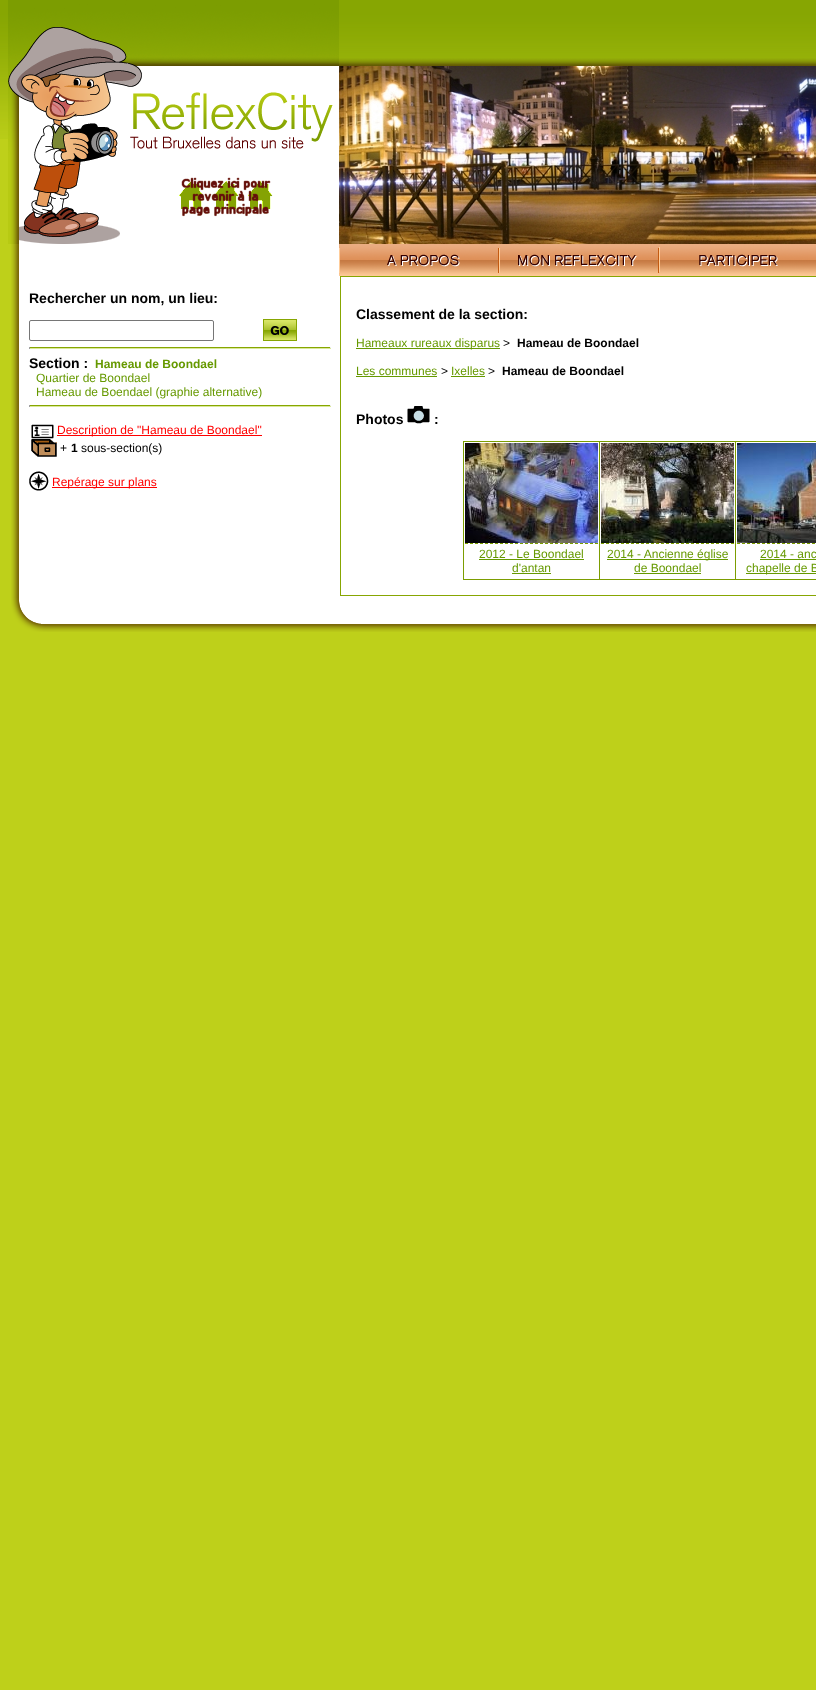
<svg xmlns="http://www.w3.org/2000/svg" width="816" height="1690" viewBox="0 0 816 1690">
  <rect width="100%" height="100%" fill="#bed01a"/>
  <image x="0" y="0" width="816" height="139" href="img1.png"/>
  <image x="8" y="0" width="331" height="244" href="img2.png"/>
  <image x="339" y="58" width="477" height="8" href="img3.png"/>
  <image x="339" y="66" width="477" height="178" href="img4.png"/>
  <image x="11" y="244" width="328" height="32" href="img5.png"/>
  <image x="339" y="244" width="160" height="32" href="img6.png"/>
  <image x="499" y="244" width="160" height="32" href="img7.png"/>
  <image x="659" y="244" width="157" height="32" href="img8.png"/>
  <image x="11" y="276" width="805" height="322" href="img9.png"/>
  <text x="29" y="303" font-family="Liberation Sans" font-size="14" font-weight="bold" fill="#000000">Rechercher un nom, un lieu:</text>
  <rect x="29.5" y="320.5" width="184" height="20" rx="1.5" fill="none" stroke="#767676"/>
  <image x="263" y="319" width="34" height="22" href="img10.png"/>
  <rect x="29" y="347" width="302" height="1" fill="#87a602"/>
  <rect x="330" y="347" width="1" height="2" fill="#eeeeee"/>
  <rect x="29" y="348" width="302" height="1" fill="#d9e997"/>
  <rect x="29" y="347" width="1" height="2" fill="#9f9f9f"/>
  <text x="29" y="368" font-family="Liberation Sans" font-size="14" font-weight="bold" fill="#000000">Section :</text>
  <text x="95" y="368" font-family="Liberation Sans" font-size="12" font-weight="bold" fill="#669900">Hameau de Boondael</text>
  <text x="36" y="382" font-family="Liberation Sans" font-size="12" fill="#669900">Quartier de Boondael</text>
  <text x="36" y="396" font-family="Liberation Sans" font-size="12" fill="#669900">Hameau de Boendael (graphie alternative)</text>
  <rect x="29" y="405" width="302" height="1" fill="#87a602"/>
  <rect x="330" y="405" width="1" height="2" fill="#eeeeee"/>
  <rect x="29" y="406" width="302" height="1" fill="#d9e997"/>
  <rect x="29" y="405" width="1" height="2" fill="#9f9f9f"/>
  <image x="31" y="424" width="23" height="15" href="img11.png"/>
  <rect x="57" y="435" width="205" height="1" fill="#ff0000"/>
  <text x="57" y="434" font-family="Liberation Sans" font-size="12" fill="#ff0000">Description de "Hameau de Boondael"</text>
  <image x="31" y="439" width="26" height="18" href="img12.png"/>
  <text x="60" y="452" font-family="Liberation Sans" font-size="12" fill="#000000">+</text>
  <text x="71" y="452" font-family="Liberation Sans" font-size="12" font-weight="bold" fill="#000000">1</text>
  <text x="81" y="452" font-family="Liberation Sans" font-size="12" fill="#000000">sous-section(s)</text>
  <image x="29" y="471" width="20" height="20" href="img13.png"/>
  <rect x="52" y="487" width="105" height="1" fill="#ff0000"/>
  <text x="52" y="486" font-family="Liberation Sans" font-size="12" fill="#ff0000">Repérage sur plans</text>
  <rect x="340.5" y="276.5" width="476" height="319" fill="none" stroke="#87a602"/>
  <text x="356" y="319" font-family="Liberation Sans" font-size="14" font-weight="bold" fill="#000000">Classement de la section:</text>
  <rect x="356" y="348" width="144" height="1" fill="#669900"/>
  <text x="356" y="347" font-family="Liberation Sans" font-size="12" fill="#669900">Hameaux rureaux disparus</text>
  <text x="503" y="347" font-family="Liberation Sans" font-size="12" fill="#000000">&gt;</text>
  <text x="517" y="347" font-family="Liberation Sans" font-size="12" font-weight="bold" fill="#000000">Hameau de Boondael</text>
  <text x="356" y="375" font-family="Liberation Sans" font-size="12" fill="#669900">Les communes</text>
  <rect x="356" y="376" width="81" height="1" fill="#669900"/>
  <text x="441" y="375" font-family="Liberation Sans" font-size="12" fill="#000000">&gt;</text>
  <text x="451" y="375" font-family="Liberation Sans" font-size="12" fill="#669900">Ixelles</text>
  <rect x="451" y="376" width="34" height="1" fill="#669900"/>
  <text x="488" y="375" font-family="Liberation Sans" font-size="12" fill="#000000">&gt;</text>
  <text x="502" y="375" font-family="Liberation Sans" font-size="12" font-weight="bold" fill="#000000">Hameau de Boondael</text>
  <text x="356" y="424" font-family="Liberation Sans" font-size="14" font-weight="bold" fill="#000000">Photos</text>
  <image x="407" y="406" width="23" height="18" href="img14.png"/>
  <text x="434" y="424" font-family="Liberation Sans" font-size="14" font-weight="bold" fill="#000000">:</text>
  <rect x="463" y="441" width="353" height="1" fill="#7c9d01"/>
  <rect x="463" y="579" width="353" height="1" fill="#7c9d01"/>
  <rect x="463" y="441" width="1" height="139" fill="#7c9d01"/>
  <path d="M465 543.5H598" fill="none" stroke="#7c9d01" stroke-dasharray="3 2"/>
  <image x="465" y="443" width="133" height="100" href="img15.png"/>
  <text x="479" y="558" font-family="Liberation Sans" font-size="12" fill="#669900">2012 - Le Boondael</text>
  <rect x="479" y="559" width="105" height="1" fill="#669900"/>
  <text x="512" y="572" font-family="Liberation Sans" font-size="12" fill="#669900">d'antan</text>
  <rect x="512" y="573" width="39" height="1" fill="#669900"/>
  <rect x="599" y="441" width="1" height="139" fill="#7c9d01"/>
  <path d="M601 543.5H734" fill="none" stroke="#7c9d01" stroke-dasharray="3 2"/>
  <image x="601" y="443" width="133" height="100" href="img16.png"/>
  <rect x="607" y="559" width="121" height="1" fill="#669900"/>
  <text x="607" y="558" font-family="Liberation Sans" font-size="12" fill="#669900">2014 - Ancienne église</text>
  <text x="634" y="572" font-family="Liberation Sans" font-size="12" fill="#669900">de Boondael</text>
  <rect x="634" y="573" width="67" height="1" fill="#669900"/>
  <rect x="735" y="441" width="1" height="139" fill="#7c9d01"/>
  <path d="M737 543.5H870" fill="none" stroke="#7c9d01" stroke-dasharray="3 2"/>
  <image x="737" y="443" width="79" height="100" href="img17.png"/>
  <text x="760" y="558" font-family="Liberation Sans" font-size="12" fill="#669900">2014 - anc</text>
  <rect x="760" y="559" width="56" height="1" fill="#669900"/>
  <rect x="746" y="573" width="70" height="1" fill="#669900"/>
  <text x="746" y="572" font-family="Liberation Sans" font-size="12" fill="#669900">chapelle de B</text>
  <image x="11" y="598" width="805" height="34" href="img18.png"/>
</svg>
